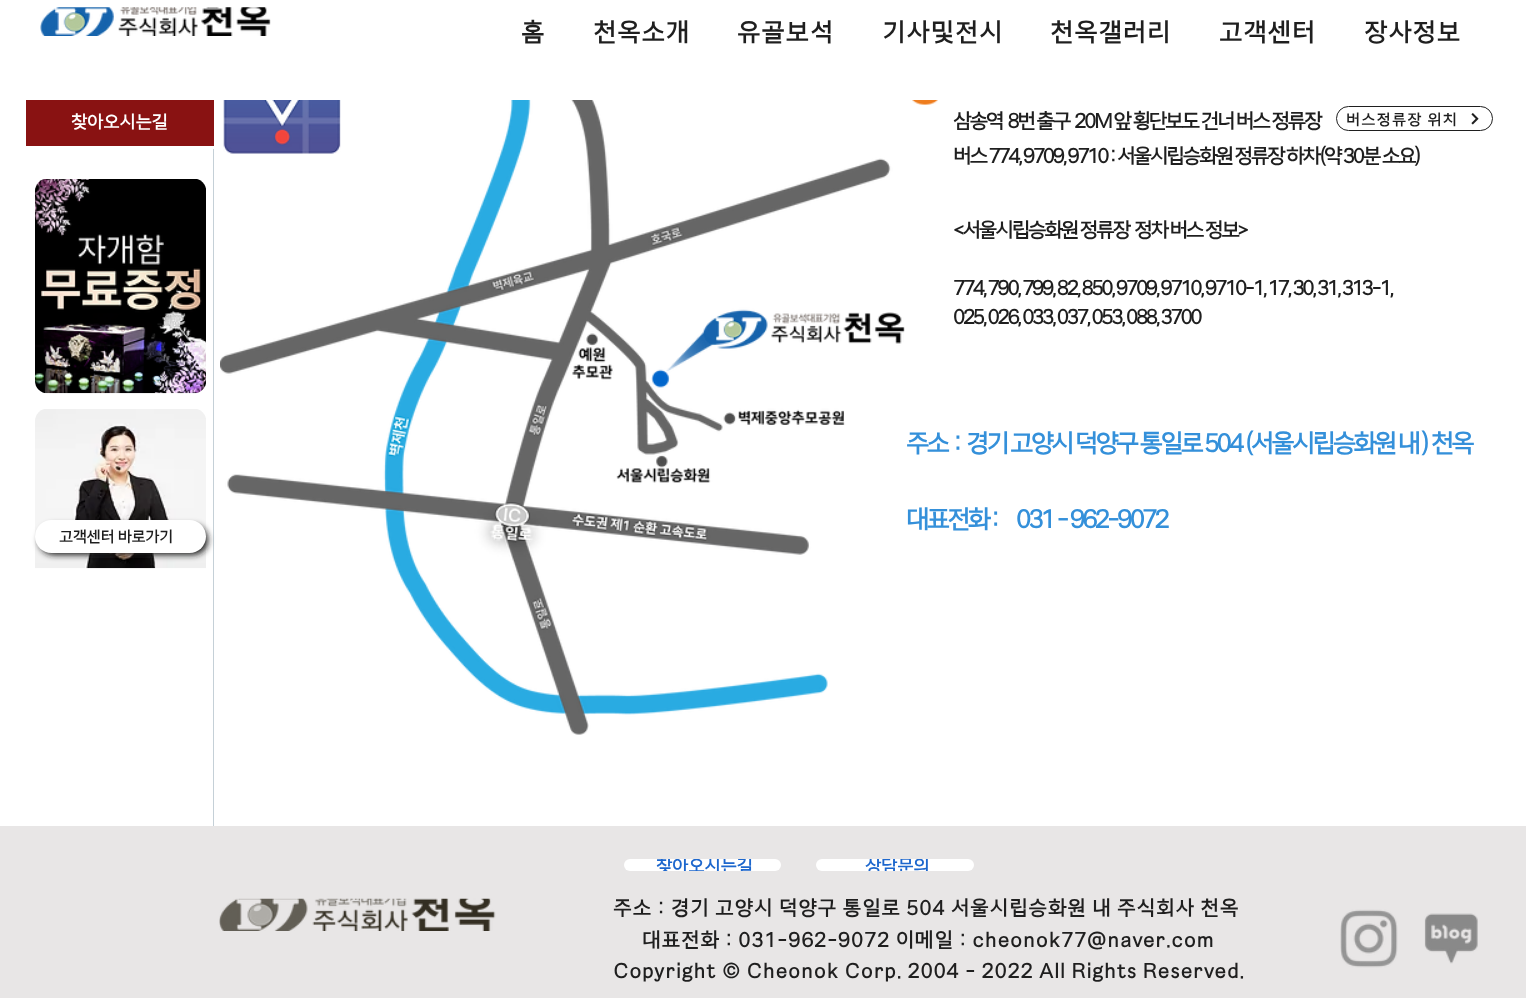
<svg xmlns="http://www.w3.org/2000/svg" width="1526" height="998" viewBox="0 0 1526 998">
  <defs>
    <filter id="blur1" x="-50%" y="-200%" width="200%" height="500%"><feGaussianBlur stdDeviation="3"/></filter>
    <clipPath id="clip1"><rect x="656" y="859" width="97" height="12"/></clipPath>
    <clipPath id="clip2"><rect x="865" y="859" width="65" height="12"/></clipPath>
  </defs>
  <rect width="100%" height="100%" fill="#ffffff"/>
  <image x="40" y="7" width="231" height="29" href="img1.png"/>
  <text x="521" y="41" font-family="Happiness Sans" font-size="25" font-weight="bold" letter-spacing="1.25" fill="#1f1f1f">홈</text>
  <text x="593" y="41" font-family="Happiness Sans" font-size="25" font-weight="bold" letter-spacing="1.25" fill="#1f1f1f">천옥소개</text>
  <text x="737" y="41" font-family="Happiness Sans" font-size="25" font-weight="bold" letter-spacing="1.25" fill="#1f1f1f">유골보석</text>
  <text x="882" y="41" font-family="Happiness Sans" font-size="25" font-weight="bold" letter-spacing="1.25" fill="#1f1f1f">기사및전시</text>
  <text x="1050" y="41" font-family="Happiness Sans" font-size="25" font-weight="bold" letter-spacing="1.25" fill="#1f1f1f">천옥갤러리</text>
  <text x="1219" y="41" font-family="Happiness Sans" font-size="25" font-weight="bold" letter-spacing="1.25" fill="#1f1f1f">고객센터</text>
  <text x="1364" y="41" font-family="Happiness Sans" font-size="25" font-weight="bold" letter-spacing="1.25" fill="#1f1f1f">장사정보</text>
  <image x="220" y="100" width="685" height="635" href="img2.png"/>
  <image x="223" y="100" width="118" height="54" href="img3.png"/>
  <image x="912" y="100" width="26" height="5" href="img4.png"/>
  <text x="953" y="128" font-family="Happiness Sans" font-size="20" font-weight="bold" letter-spacing="-2" fill="#1f1f1f" xml:space="preserve">삼송역  8번 출구  20M 앞 횡단보도 건너 버스 정류장</text>
  <text x="953" y="163" font-family="Happiness Sans" font-size="20" font-weight="bold" letter-spacing="-2" fill="#1f1f1f">버스 774, 9709, 9710 : 서울시립승화원 정류장 하차(약 30분 소요)</text>
  <rect x="26" y="100" width="188" height="46" fill="#891212"/>
  <text x="71" y="128" font-family="Happiness Sans" font-size="17.5" font-weight="bold" fill="#ffffff">찾아오시는길</text>
  <rect x="1336.5" y="106.5" width="156" height="24" rx="12" fill="none" stroke="#1f1f1f"/>
  <text x="1346" y="125" font-family="Happiness Sans" font-size="15" font-weight="bold" letter-spacing="1.5" fill="#1f1f1f">버스정류장 위치</text>
  <image x="1471" y="113" width="8" height="12" href="img5.png"/>
  <image x="35" y="409" width="171" height="160" href="img7.png"/>
  <rect x="39" y="525" width="169" height="30" rx="15" fill="#1f1f1f" filter="url(#blur1)"/>
  <rect x="213" y="149" width="1" height="677" fill="#305670" fill-opacity="0.28"/>
  <text x="953" y="237" font-family="Happiness Sans" font-size="20" font-weight="bold" letter-spacing="-2" fill="#1f1f1f" xml:space="preserve">&lt;서울시립승화원 정류장  정차 버스 정보&gt;</text>
  <text x="953" y="295" font-family="Happiness Sans" font-size="20" font-weight="bold" letter-spacing="-2" fill="#1f1f1f">774, 790, 799, 82, 850, 9709, 9710, 9710-1, 17, 30, 31, 313-1,</text>
  <text x="953" y="324" font-family="Happiness Sans" font-size="20" font-weight="bold" letter-spacing="-2" fill="#1f1f1f">025, 026, 033, 037, 053, 088, 3700</text>
  <text x="906" y="452" font-family="Happiness Sans" font-size="25" font-weight="bold" letter-spacing="-2.5" fill="#3490da" xml:space="preserve">주소  :  경기 고양시 덕양구 통일로 504 (서울시립승화원 내 ) 천옥</text>
  <text x="906" y="528" font-family="Happiness Sans" font-size="25" font-weight="bold" letter-spacing="-2.5" fill="#3490da">대표전화 :</text>
  <text x="1016" y="528" font-family="Happiness Sans" font-size="25" font-weight="bold" letter-spacing="-2.5" fill="#3490da">031 - 962-9072</text>
  <image x="35" y="179" width="171" height="215" href="img6.png"/>
  <rect x="35" y="520" width="171" height="33" rx="16.5" fill="#ffffff"/>
  <text x="59" y="542" font-family="Happiness Sans" font-size="15" font-weight="bold" fill="#1f1f1f">고객센터 바로가기</text>
  <rect x="0" y="826" width="1526" height="172" fill="#e8e6e6"/>
  <rect x="624" y="859" width="157" height="12" rx="6" fill="#ffffff"/>
  <g clip-path="url(#clip1)">
    <text x="656" y="872" font-family="Happiness Sans" font-size="17.5" font-weight="bold" fill="#1d67cd">찾아오시는길</text>
  </g>
  <rect x="816" y="859" width="158" height="12" rx="6" fill="#ffffff"/>
  <g clip-path="url(#clip2)">
    <text x="865" y="872" font-family="Happiness Sans" font-size="17.5" font-weight="bold" fill="#1d67cd">상담문의</text>
  </g>
  <image x="219" y="898" width="277" height="33" href="img8.png"/>
  <text x="613" y="915" font-family="Happiness Sans" font-size="20" font-weight="bold" letter-spacing="1" fill="#1f1f1f">주소 : 경기 고양시 덕양구 통일로 504 서울시립승화원 내 주식회사 천옥</text>
  <text x="642" y="947" font-family="Happiness Sans" font-size="20" font-weight="bold" letter-spacing="1" fill="#1f1f1f">대표전화 : 031-962-9072 이메일 : cheonok77@naver.com</text>
  <text x="613" y="978" font-family="Happiness Sans" font-size="20" font-weight="bold" letter-spacing="1" fill="#1f1f1f">Copyright © Cheonok Corp. 2004 - 2022 All Rights Reserved.</text>
  <image x="1340" y="909" width="58" height="59" href="img9.png"/>
  <image x="1424" y="913" width="54" height="51" href="img10.png"/>
</svg>
